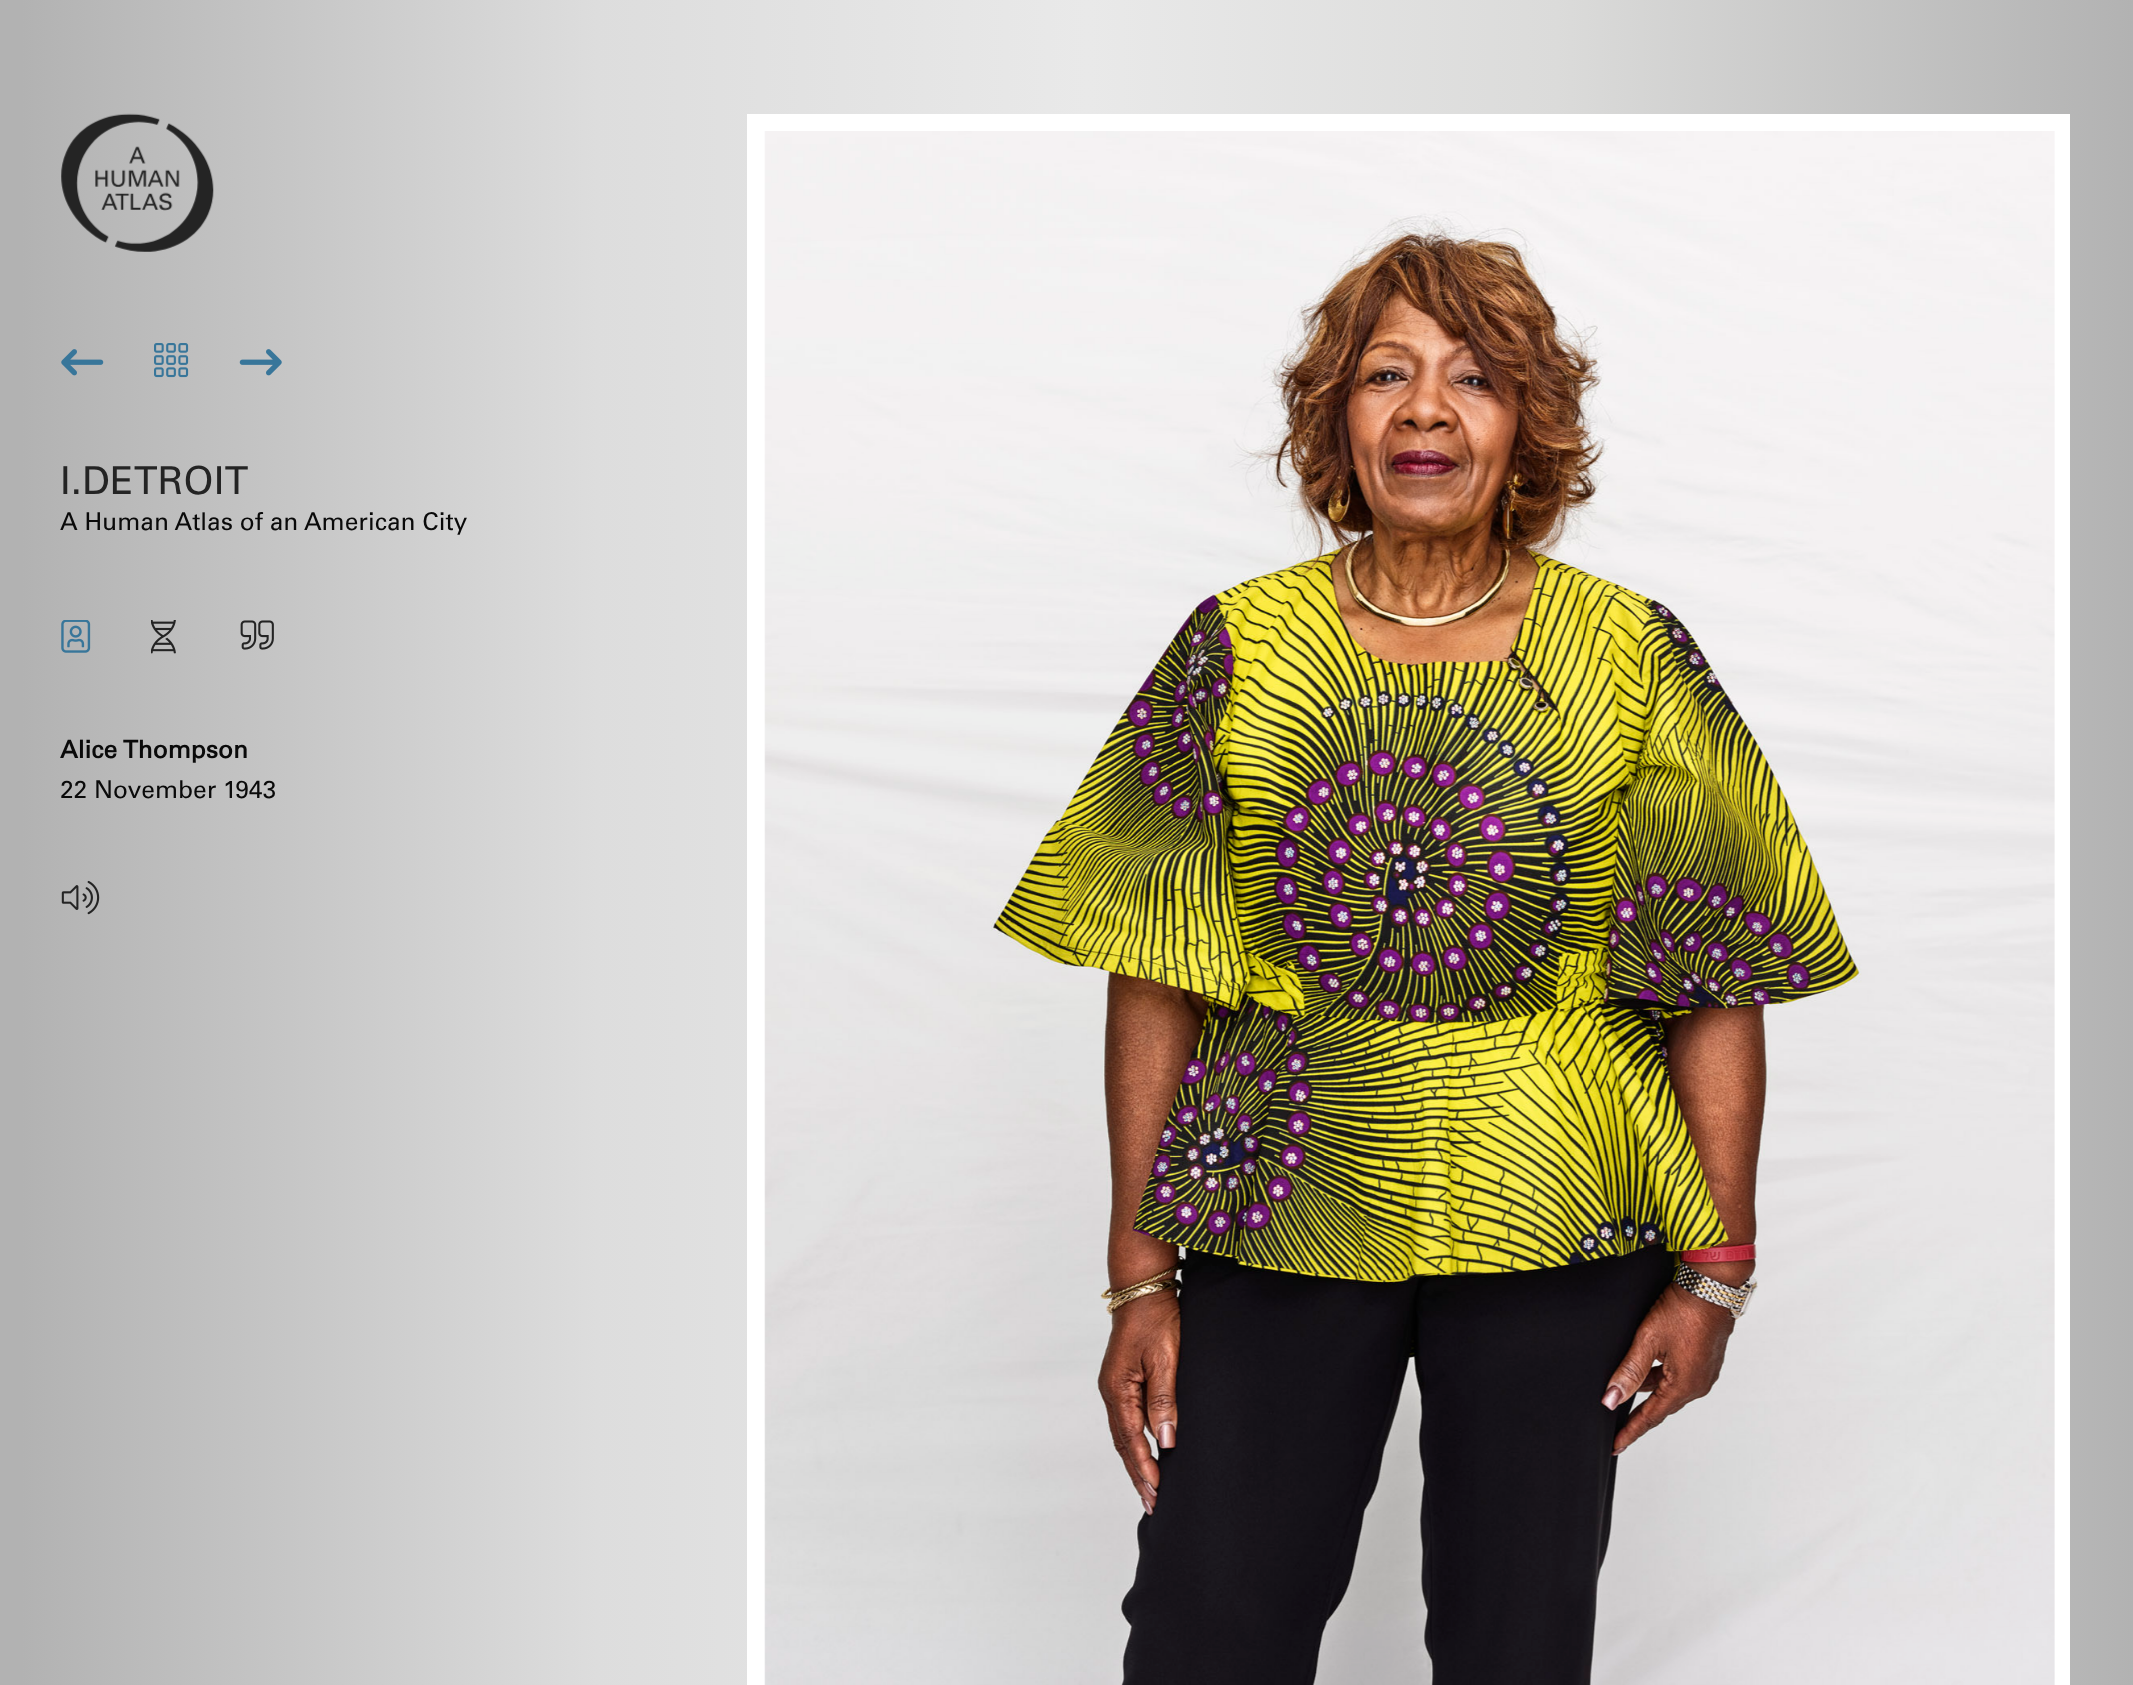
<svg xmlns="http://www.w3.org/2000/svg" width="2133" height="1685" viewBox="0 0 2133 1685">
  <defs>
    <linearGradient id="g1" gradientUnits="userSpaceOnUse" x1="0" y1="968" x2="2133" y2="968"><stop offset="0.01" stop-color="#b2b2b2"/><stop offset="0.28" stop-color="#dddddd"/><stop offset="0.51" stop-color="#e9e9e9"/><stop offset="0.73" stop-color="#dbdbda"/><stop offset="1" stop-color="#b2b2b2"/></linearGradient>
  </defs>
  <rect width="100%" height="100%" fill="#ffffff"/>
  <rect x="0" y="0" width="2133" height="1685" fill="url(#g1)"/>
  <image x="61" y="113" width="153" height="139" href="img1.png"/>
  <image x="61" y="349" width="43" height="27" href="img2.png"/>
  <image x="154" y="343" width="35" height="35" href="img3.png"/>
  <image x="239" y="349" width="43" height="27" href="img4.png"/>
  <text x="60" y="494" font-family="Univers" font-size="38.5" letter-spacing="0.25" fill="#242424">I.DETROIT</text>
  <text x="60" y="530" font-family="Univers" font-size="24.5" fill="#0a0a0a">A Human Atlas of an American City</text>
  <image x="61" y="620" width="30" height="33" href="img5.png"/>
  <image x="151" y="620" width="25" height="34" href="img6.png"/>
  <image x="240" y="620" width="34" height="30" href="img7.png"/>
  <text x="60" y="758" font-family="Univers" font-size="24.5" font-weight="bold" fill="#0a0a0a">Alice Thompson</text>
  <text x="60" y="798" font-family="Univers" font-size="24.5" fill="#0a0a0a">22 November 1943</text>
  <image x="61" y="880" width="39" height="35" href="img8.png"/>
  <rect x="747" y="114" width="1323" height="1571" fill="#ffffff"/>
  <image x="764" y="131" width="1291" height="1554" href="img9.png"/>
</svg>
